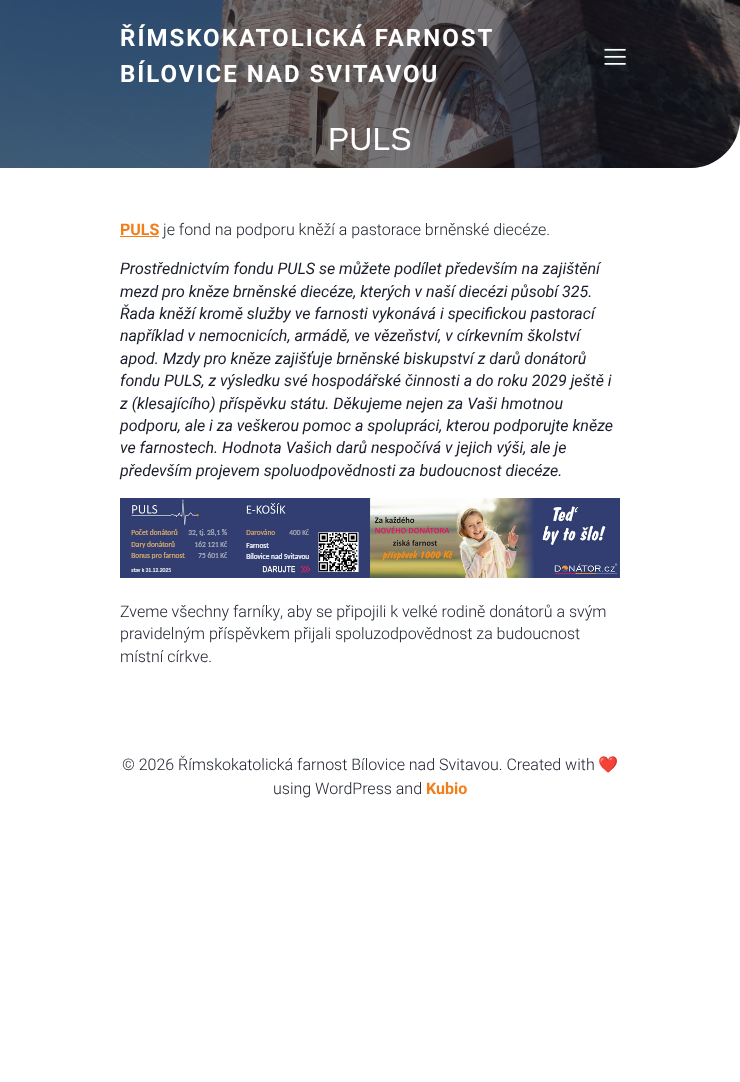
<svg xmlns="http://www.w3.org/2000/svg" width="740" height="1082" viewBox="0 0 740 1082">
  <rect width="100%" height="100%" fill="#ffffff"/>
  <image x="0" y="0" width="740" height="168" href="img2.png"/>
  <path d="M0 0H740V118C740 145.5 717.5 168 690 168H0Z" fill="#111219" fill-opacity="0.58"/>
  <text x="120" y="46" word-spacing="-1" font-family="Roboto" font-size="24" font-weight="bold" letter-spacing="2" fill="#ffffff">ŘÍMSKOKATOLICKÁ FARNOST</text>
  <text x="120" y="82" font-family="Roboto" font-size="24" font-weight="bold" letter-spacing="2" fill="#ffffff">BÍLOVICE NAD SVITAVOU</text>
  <image x="604" y="48" width="22" height="17" href="img1.png"/>
  <text x="328" y="150" font-family="Liberation Sans" font-size="32" fill="#ffffff">PULS</text>
  <text x="120" y="235" font-family="Roboto" font-size="16" font-weight="bold" fill="#f17e18">PULS</text>
  <rect x="120" y="236" width="39" height="1" fill="#f17e18"/>
  <text x="163" y="235" font-family="Roboto" font-size="16" font-weight="300" fill="#191d2a">je fond na podporu kněží a pastorace brněnské diecéze.</text>
  <text x="120" y="274" font-family="Roboto" font-size="16" font-style="italic" fill="#191d2a">Prostřednictvím fondu PULS se můžete podílet především na zajištění</text>
  <text x="120" y="297" font-family="Roboto" font-size="16" font-style="italic" fill="#191d2a">mezd pro kněze brněnské diecéze, kterých v naší diecézi působí 325.</text>
  <text x="120" y="319" font-family="Roboto" font-size="16" font-style="italic" fill="#191d2a">Řada kněží kromě služby ve farnosti vykonává i specifickou pastorací</text>
  <text x="120" y="341" font-family="Roboto" font-size="16" font-style="italic" fill="#191d2a">například v nemocnicích, armádě, ve vězeňství, v církevním školství</text>
  <text x="120" y="364" font-family="Roboto" font-size="16" font-style="italic" fill="#191d2a">apod. Mzdy pro kněze zajišťuje brněnské biskupství z darů donátorů</text>
  <text x="120" y="386" font-family="Roboto" font-size="16" font-style="italic" fill="#191d2a">fondu PULS, z výsledku své hospodářské činnosti a do roku 2029 ještě i</text>
  <text x="120" y="409" font-family="Roboto" font-size="16" font-style="italic" fill="#191d2a">z (klesajícího) příspěvku státu. Děkujeme nejen za Vaši hmotnou</text>
  <text x="120" y="431" font-family="Roboto" font-size="16" font-style="italic" fill="#191d2a">podporu, ale i za veškerou pomoc a spolupráci, kterou podporujte kněze</text>
  <text x="120" y="453" font-family="Roboto" font-size="16" font-style="italic" fill="#191d2a">ve farnostech. Hodnota Vašich darů nespočívá v jejich výši, ale je</text>
  <text x="120" y="476" font-family="Roboto" font-size="16" font-style="italic" fill="#191d2a">především projevem spoluodpovědnosti za budoucnost diecéze.</text>
  <image x="120" y="498" width="500" height="80" href="img3.png"/>
  <text x="120" y="617" font-family="Roboto" font-size="16" font-weight="300" fill="#191d2a">Zveme všechny farníky, aby se připojili k velké rodině donátorů a svým</text>
  <text x="120" y="639" font-family="Roboto" font-size="16" font-weight="300" fill="#191d2a">pravidelným příspěvkem přijali spoluzodpovědnost za budoucnost</text>
  <text x="120" y="662" font-family="Roboto" font-size="16" font-weight="300" fill="#191d2a">místní církve.</text>
  <text x="122" y="770" font-family="Roboto" font-size="16" font-weight="300" fill="#191d2a">© 2026 Římskokatolická farnost Bílovice nad Svitavou. Created with</text>
  <text x="598" y="770" font-family="Noto Color Emoji" font-size="16" fill="#191d2a">❤️</text>
  <text x="273" y="794" font-family="Roboto" font-size="16" font-weight="300" fill="#191d2a">using WordPress and</text>
  <text x="426" y="794" font-family="Roboto" font-size="16" font-weight="bold" fill="#f17e18">Kubio</text>
</svg>
